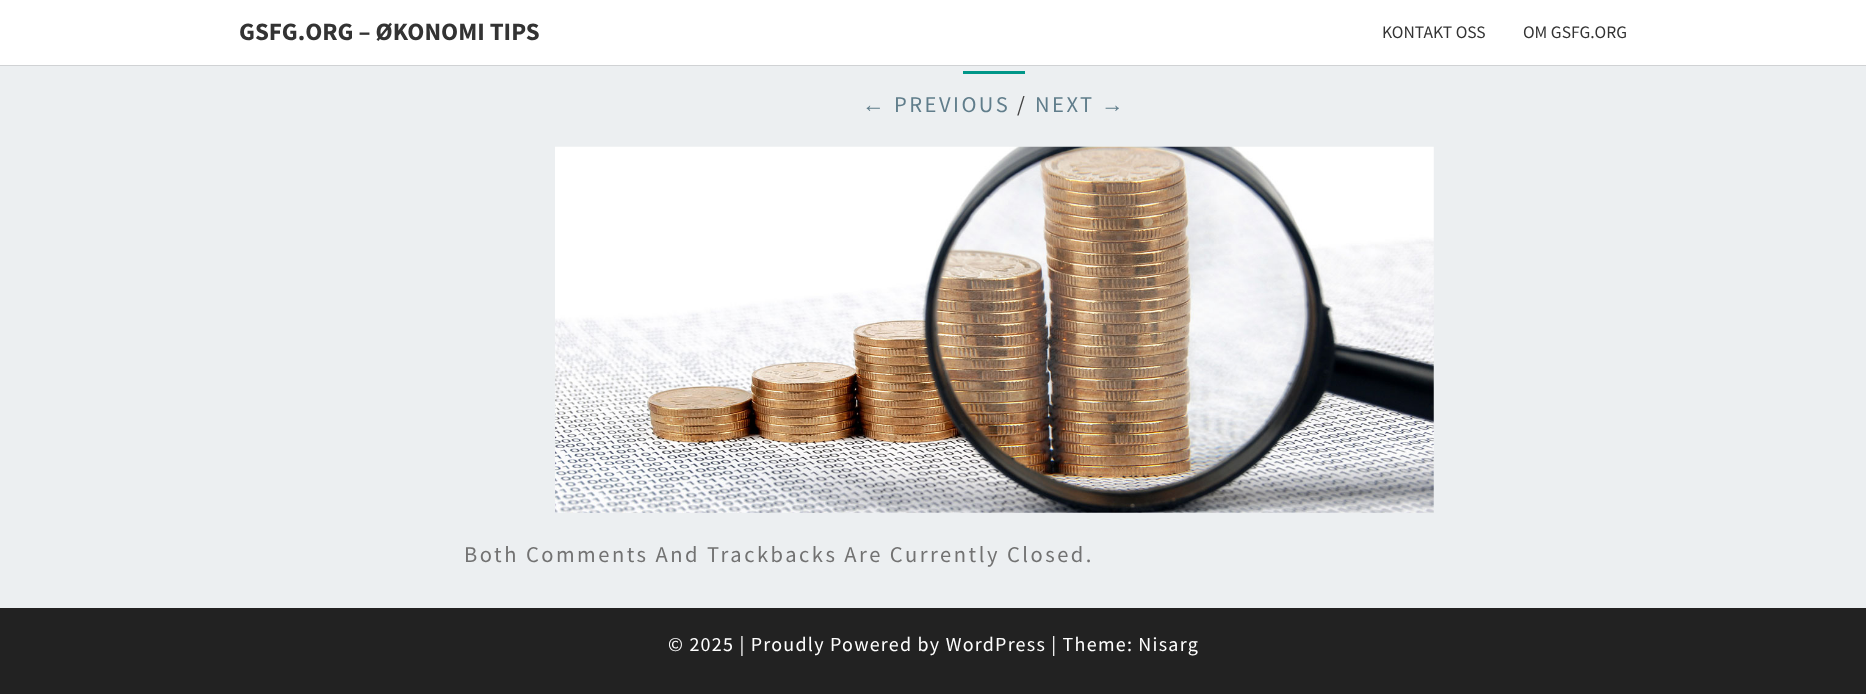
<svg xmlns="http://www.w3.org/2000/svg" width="1866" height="694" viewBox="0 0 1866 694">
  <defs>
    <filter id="blur1" x="-50%" y="-200%" width="200%" height="500%"><feGaussianBlur stdDeviation="0.5"/></filter>
  </defs>
  <rect width="100%" height="100%" fill="#eceff1"/>
  <rect x="0" y="1" width="1866" height="65" fill="#646464" fill-opacity="0.2" filter="url(#blur1)"/>
  <rect x="0" y="0" width="1866" height="65" fill="#ffffff"/>
  <text x="239" y="40" font-family="Source Sans Pro" font-size="25" font-weight="bold" fill="#333333">GSFG.ORG – ØKONOMI TIPS</text>
  <text x="1382" y="38" font-family="Source Sans Pro" font-size="17.5" fill="#333333">KONTAKT OSS</text>
  <text x="1523" y="38" font-family="Source Sans Pro" font-size="17.5" fill="#333333">OM GSFG.ORG</text>
  <rect x="963" y="71" width="62" height="3" fill="#009688"/>
  <text x="862" y="112" font-family="Liberation Sans" font-size="22.5" letter-spacing="2.5" fill="#607d8b">←</text>
  <text x="894" y="112" font-family="Source Sans Pro" font-size="22.5" letter-spacing="2.5" fill="#607d8b">PREVIOUS</text>
  <text x="1017" y="112" font-family="Source Sans Pro" font-size="22.5" letter-spacing="2.5" fill="#424242">/</text>
  <text x="1035" y="112" font-family="Source Sans Pro" font-size="22.5" letter-spacing="2.5" fill="#607d8b">NEXT</text>
  <text x="1101" y="112" font-family="Liberation Sans" font-size="22.5" letter-spacing="2.5" fill="#607d8b">→</text>
  <image x="555" y="146" width="879" height="367" href="img1.png"/>
  <text x="464" y="562" font-family="Source Sans Pro" font-size="22.5" letter-spacing="2.5" fill="#727272">Both Comments And Trackbacks Are Currently Closed.</text>
  <rect x="0" y="608" width="1866" height="86" fill="#222222"/>
  <text x="668" y="651" font-family="Source Sans Pro" font-size="20" letter-spacing="1.25" fill="#ffffff">© 2025 | Proudly Powered by WordPress | Theme: Nisarg</text>
</svg>
